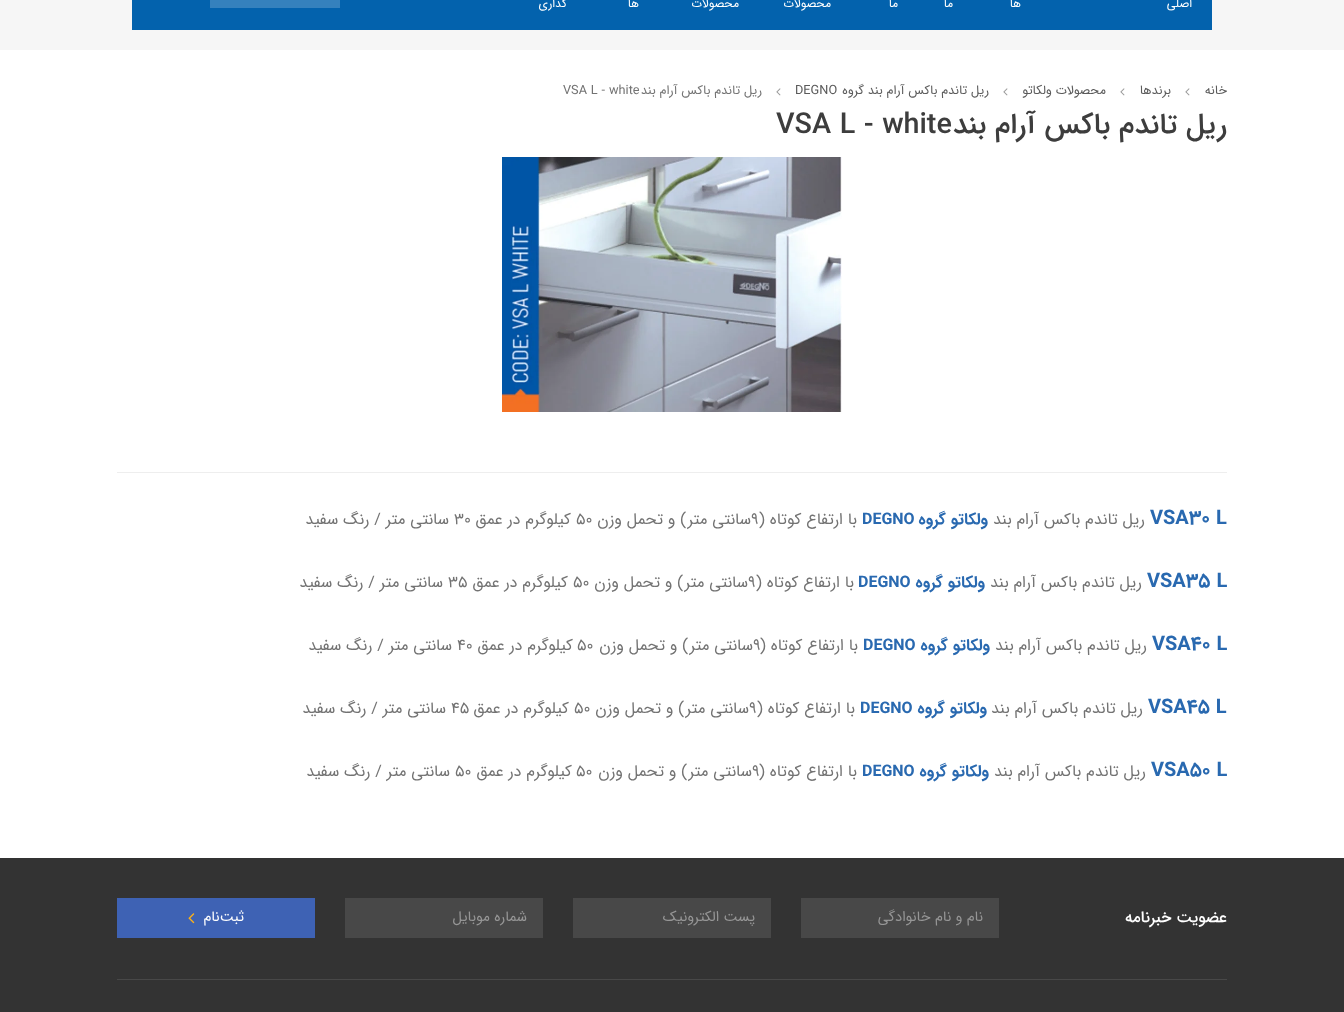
<svg xmlns="http://www.w3.org/2000/svg" width="1344" height="1012" viewBox="0 0 1344 1012">
  <rect width="100%" height="100%" fill="#ffffff"/>
  <rect x="0" y="0" width="1344" height="50" fill="#f6f6f6"/>
  <rect x="132" y="0" width="1080" height="30" fill="#0362ad"/>
  <text x="1192" y="7" font-family="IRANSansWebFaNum" font-size="12" direction="rtl" fill="#ffffff">اصلی</text>
  <text x="1021" y="7" font-family="IRANSansWebFaNum" font-size="12" direction="rtl" fill="#ffffff">ها</text>
  <text x="953" y="7" font-family="IRANSansWebFaNum" font-size="12" direction="rtl" fill="#ffffff">ما</text>
  <text x="898" y="7" font-family="IRANSansWebFaNum" font-size="12" direction="rtl" fill="#ffffff">ما</text>
  <text x="831" y="7" font-family="IRANSansWebFaNum" font-size="12" direction="rtl" fill="#ffffff">محصولات</text>
  <text x="739" y="7" font-family="IRANSansWebFaNum" font-size="12" direction="rtl" fill="#ffffff">محصولات</text>
  <text x="639" y="7" font-family="IRANSansWebFaNum" font-size="12" direction="rtl" fill="#ffffff">ها</text>
  <text x="567" y="7" font-family="IRANSansWebFaNum" font-size="12" direction="rtl" fill="#ffffff">گذاری</text>
  <rect x="209" y="0" width="131" height="8" fill="#3581bd"/>
  <rect x="209" y="0" width="1" height="8" fill="#0362ad"/>
  <text x="1227" y="94" font-family="IRANSansWebFaNum" font-size="12.75" direction="rtl" fill="#5b5b5b">خانه</text>
  <image x="1185" y="88" width="5" height="8" href="img1.png"/>
  <text x="1171" y="94" font-family="IRANSansWebFaNum" font-size="12.75" direction="rtl" fill="#5b5b5b">برندها</text>
  <image x="1120" y="88" width="5" height="8" href="img1.png"/>
  <text x="1106" y="94" font-family="IRANSansWebFaNum" font-size="12.75" direction="rtl" fill="#5b5b5b">محصولات ولکاتو</text>
  <image x="1003" y="88" width="5" height="8" href="img1.png"/>
  <text x="989" y="94" font-family="IRANSansWebFaNum" font-size="12.75" direction="rtl" fill="#5b5b5b">ریل تاندم باکس آرام بند گروه</text>
  <text x="795" y="94" font-family="IRANSansWebFaNum" font-size="12.75" fill="#5b5b5b">DEGNO</text>
  <image x="776" y="88" width="5" height="8" href="img1.png"/>
  <text x="762" y="94" font-family="IRANSansWebFaNum" font-size="12.75" direction="rtl" fill="#737373">ریل تاندم باکس آرام بند</text>
  <text x="563" y="94" font-family="IRANSansWebFaNum" font-size="12.75" fill="#737373">VSA L - white</text>
  <text x="1227" y="133" font-family="IRANSansWebFaNum" font-size="28.75" font-weight="500" direction="rtl" fill="#3d3d3d">ریل تاندم باکس آرام بند</text>
  <text x="776" y="133" font-family="IRANSansWebFaNum" font-size="28.75" font-weight="500" fill="#3d3d3d">VSA L - white</text>
  <image x="502" y="157" width="340" height="255" href="img2.png"/>
  <rect x="117" y="472" width="1110" height="1" fill="#eeeeee"/>
  <text x="1150" y="524" font-family="IRANSansWebFaNum" font-size="20" font-weight="bold" fill="#2969b0">VSA30 L</text>
  <text x="1145" y="524" font-family="IRANSansWebFaNum" font-size="16" direction="rtl" fill="#737373">ریل تاندم باکس آرام بند</text>
  <text x="988" y="524" font-family="IRANSansWebFaNum" font-size="16" font-weight="bold" direction="rtl" fill="#2969b0">ولکاتو گروه</text>
  <text x="862" y="524" font-family="IRANSansWebFaNum" font-size="16" font-weight="bold" fill="#2969b0">DEGNO</text>
  <text x="857" y="524" font-family="IRANSansWebFaNum" font-size="16" direction="rtl" fill="#737373">با ارتفاع کوتاه (</text>
  <text x="751" y="524" font-family="IRANSansWebFaNum" font-size="16" fill="#737373">۹</text>
  <text x="751" y="524" font-family="IRANSansWebFaNum" font-size="16" direction="rtl" fill="#737373">سانتی متر) و تحمل وزن</text>
  <text x="576" y="524" font-family="IRANSansWebFaNum" font-size="16" fill="#737373">50</text>
  <text x="571" y="524" font-family="IRANSansWebFaNum" font-size="16" direction="rtl" fill="#737373">کیلوگرم در عمق</text>
  <text x="454" y="524" font-family="IRANSansWebFaNum" font-size="16" fill="#737373">30</text>
  <text x="449" y="524" font-family="IRANSansWebFaNum" font-size="16" direction="rtl" fill="#737373">سانتی متر / رنگ سفید</text>
  <text x="1147" y="587" font-family="IRANSansWebFaNum" font-size="20" font-weight="bold" fill="#2969b0">VSA35 L</text>
  <text x="1142" y="587" font-family="IRANSansWebFaNum" font-size="16" direction="rtl" fill="#737373">ریل تاندم باکس آرام بند</text>
  <text x="985" y="587" font-family="IRANSansWebFaNum" font-size="16" font-weight="bold" direction="rtl" fill="#2969b0">ولکاتو گروه</text>
  <text x="858" y="587" font-family="IRANSansWebFaNum" font-size="16" font-weight="bold" fill="#2969b0">DEGNO</text>
  <text x="854" y="587" font-family="IRANSansWebFaNum" font-size="16" direction="rtl" fill="#737373">با ارتفاع کوتاه (</text>
  <text x="748" y="587" font-family="IRANSansWebFaNum" font-size="16" fill="#737373">۹</text>
  <text x="748" y="587" font-family="IRANSansWebFaNum" font-size="16" direction="rtl" fill="#737373">سانتی متر) و تحمل وزن</text>
  <text x="573" y="587" font-family="IRANSansWebFaNum" font-size="16" fill="#737373">50</text>
  <text x="568" y="587" font-family="IRANSansWebFaNum" font-size="16" direction="rtl" fill="#737373">کیلوگرم در عمق</text>
  <text x="448" y="587" font-family="IRANSansWebFaNum" font-size="16" fill="#737373">35</text>
  <text x="443" y="587" font-family="IRANSansWebFaNum" font-size="16" direction="rtl" fill="#737373">سانتی متر / رنگ سفید</text>
  <text x="1152" y="650" font-family="IRANSansWebFaNum" font-size="20" font-weight="bold" fill="#2969b0">VSA40 L</text>
  <text x="1147" y="650" font-family="IRANSansWebFaNum" font-size="16" direction="rtl" fill="#737373">ریل تاندم باکس آرام بند</text>
  <text x="990" y="650" font-family="IRANSansWebFaNum" font-size="16" font-weight="bold" direction="rtl" fill="#2969b0">ولکاتو گروه</text>
  <text x="863" y="650" font-family="IRANSansWebFaNum" font-size="16" font-weight="bold" fill="#2969b0">DEGNO</text>
  <text x="858" y="650" font-family="IRANSansWebFaNum" font-size="16" direction="rtl" fill="#737373">با ارتفاع کوتاه (</text>
  <text x="753" y="650" font-family="IRANSansWebFaNum" font-size="16" fill="#737373">۹</text>
  <text x="753" y="650" font-family="IRANSansWebFaNum" font-size="16" direction="rtl" fill="#737373">سانتی متر) و تحمل وزن</text>
  <text x="577" y="650" font-family="IRANSansWebFaNum" font-size="16" fill="#737373">50</text>
  <text x="573" y="650" font-family="IRANSansWebFaNum" font-size="16" direction="rtl" fill="#737373">کیلوگرم در عمق</text>
  <text x="457" y="650" font-family="IRANSansWebFaNum" font-size="16" fill="#737373">۴۰</text>
  <text x="452" y="650" font-family="IRANSansWebFaNum" font-size="16" direction="rtl" fill="#737373">سانتی متر / رنگ سفید</text>
  <text x="1148" y="713" font-family="IRANSansWebFaNum" font-size="20" font-weight="bold" fill="#2969b0">VSA45 L</text>
  <text x="1143" y="713" font-family="IRANSansWebFaNum" font-size="16" direction="rtl" fill="#737373">ریل تاندم باکس آرام بند</text>
  <text x="987" y="713" font-family="IRANSansWebFaNum" font-size="16" font-weight="bold" direction="rtl" fill="#2969b0">ولکاتو گروه</text>
  <text x="860" y="713" font-family="IRANSansWebFaNum" font-size="16" font-weight="bold" fill="#2969b0">DEGNO</text>
  <text x="855" y="713" font-family="IRANSansWebFaNum" font-size="16" direction="rtl" fill="#737373">با ارتفاع کوتاه (</text>
  <text x="749" y="713" font-family="IRANSansWebFaNum" font-size="16" fill="#737373">۹</text>
  <text x="749" y="713" font-family="IRANSansWebFaNum" font-size="16" direction="rtl" fill="#737373">سانتی متر) و تحمل وزن</text>
  <text x="574" y="713" font-family="IRANSansWebFaNum" font-size="16" fill="#737373">50</text>
  <text x="569" y="713" font-family="IRANSansWebFaNum" font-size="16" direction="rtl" fill="#737373">کیلوگرم در عمق</text>
  <text x="451" y="713" font-family="IRANSansWebFaNum" font-size="16" fill="#737373">۴۵</text>
  <text x="446" y="713" font-family="IRANSansWebFaNum" font-size="16" direction="rtl" fill="#737373">سانتی متر / رنگ سفید</text>
  <text x="1151" y="776" font-family="IRANSansWebFaNum" font-size="20" font-weight="bold" fill="#2969b0">VSA50 L</text>
  <text x="1146" y="776" font-family="IRANSansWebFaNum" font-size="16" direction="rtl" fill="#737373">ریل تاندم باکس آرام بند</text>
  <text x="989" y="776" font-family="IRANSansWebFaNum" font-size="16" font-weight="bold" direction="rtl" fill="#2969b0">ولکاتو گروه</text>
  <text x="862" y="776" font-family="IRANSansWebFaNum" font-size="16" font-weight="bold" fill="#2969b0">DEGNO</text>
  <text x="857" y="776" font-family="IRANSansWebFaNum" font-size="16" direction="rtl" fill="#737373">با ارتفاع کوتاه (</text>
  <text x="752" y="776" font-family="IRANSansWebFaNum" font-size="16" fill="#737373">۹</text>
  <text x="752" y="776" font-family="IRANSansWebFaNum" font-size="16" direction="rtl" fill="#737373">سانتی متر) و تحمل وزن</text>
  <text x="576" y="776" font-family="IRANSansWebFaNum" font-size="16" fill="#737373">50</text>
  <text x="572" y="776" font-family="IRANSansWebFaNum" font-size="16" direction="rtl" fill="#737373">کیلوگرم در عمق</text>
  <text x="455" y="776" font-family="IRANSansWebFaNum" font-size="16" fill="#737373">۵۰</text>
  <text x="450" y="776" font-family="IRANSansWebFaNum" font-size="16" direction="rtl" fill="#737373">سانتی متر / رنگ سفید</text>
  <rect x="0" y="858" width="1344" height="154" fill="#333333"/>
  <text x="1227" y="922" font-family="IRANSansWebFaNum" font-size="16" font-weight="500" direction="rtl" fill="#ffffff">عضویت خبرنامه</text>
  <rect x="801" y="898" width="198" height="40" fill="#484848"/>
  <text x="983" y="921" font-family="IRANSansWebFaNum" font-size="14.5" direction="rtl" fill="#969696">نام و نام خانوادگی</text>
  <rect x="573" y="898" width="198" height="40" fill="#484848"/>
  <text x="755" y="921" font-family="IRANSansWebFaNum" font-size="14.5" direction="rtl" fill="#969696">پست الکترونیک</text>
  <rect x="345" y="898" width="198" height="40" fill="#484848"/>
  <text x="527" y="921" font-family="IRANSansWebFaNum" font-size="14.5" direction="rtl" fill="#969696">شماره موبایل</text>
  <rect x="117" y="898" width="198" height="40" fill="#3e62b4"/>
  <text x="244" y="921" font-family="IRANSansWebFaNum" font-size="14.5" direction="rtl" fill="#ffffff">ثبت‌نام</text>
  <image x="188" y="913" width="7" height="11" href="img3.png"/>
  <rect x="117" y="979" width="1110" height="1" fill="#484848"/>
</svg>
